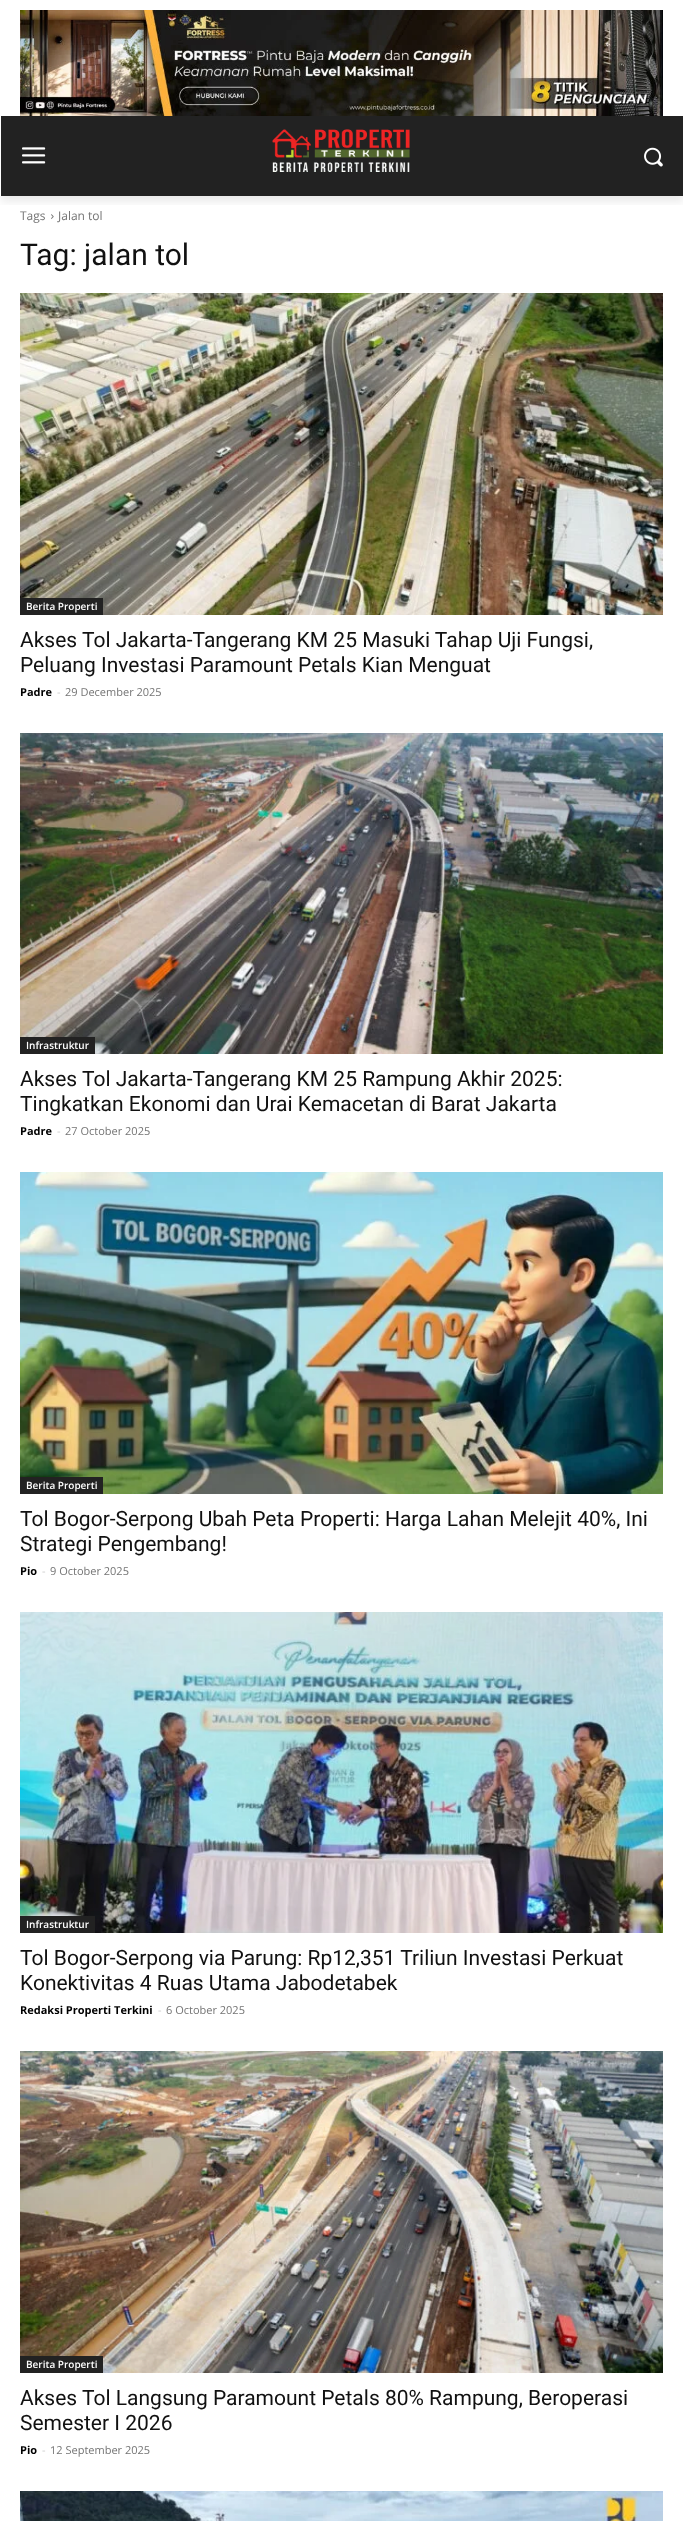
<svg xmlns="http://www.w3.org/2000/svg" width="683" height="2521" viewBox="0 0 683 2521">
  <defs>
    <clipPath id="clip1"><rect x="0" y="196" width="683" height="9"/></clipPath>
    <filter id="blur1" x="-50%" y="-200%" width="200%" height="500%"><feGaussianBlur stdDeviation="4"/></filter>
  </defs>
  <rect width="100%" height="100%" fill="#ffffff"/>
  <image x="20" y="10" width="643" height="106" href="img1.png"/>
  <rect x="1" y="116" width="682" height="80" fill="#222222"/>
  <image x="22" y="147" width="24" height="17" href="img2.png"/>
  <image x="272" y="129" width="138" height="43" href="img3.png"/>
  <image x="644" y="147" width="19" height="20" href="img4.png"/>
  <image x="51" y="214" width="3" height="5" href="img5.png"/>
  <g clip-path="url(#clip1)">
    <rect x="1" y="6" width="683" height="196" fill="#000000" fill-opacity="0.08" filter="url(#blur1)"/>
  </g>
  <text x="20" y="220" font-family="Open Sans" font-size="12" fill="#747474">Tags</text>
  <text x="58" y="220" font-family="Open Sans" font-size="12" fill="#747474">Jalan tol</text>
  <text x="20" y="265" font-family="Roboto" font-size="30" fill="#111111">Tag: jalan tol</text>
  <image x="20" y="293" width="643" height="322" href="img6.png"/>
  <rect x="20" y="598" width="83" height="17" fill="#222222"/>
  <text x="26" y="610" font-family="Open Sans" font-size="10" font-weight="600" fill="#ffffff">Berita Properti</text>
  <text x="20" y="647" font-family="Roboto" font-size="21" fill="#111111">Akses Tol Jakarta-Tangerang KM 25 Masuki Tahap Uji Fungsi,</text>
  <text x="20" y="672" font-family="Roboto" font-size="21" fill="#111111">Peluang Investasi Paramount Petals Kian Menguat</text>
  <text x="20" y="696" font-family="Open Sans" font-size="11" font-weight="bold" fill="#000000">Padre</text>
  <text x="57" y="696" font-family="Open Sans" font-size="11" fill="#cccccc">-</text>
  <text x="65" y="696" font-family="Open Sans" font-size="11" fill="#747474">29 December 2025</text>
  <image x="20" y="733" width="643" height="321" href="img7.png"/>
  <rect x="20" y="1037" width="75" height="17" fill="#222222"/>
  <text x="26" y="1049" font-family="Open Sans" font-size="10" font-weight="600" fill="#ffffff">Infrastruktur</text>
  <text x="20" y="1086" font-family="Roboto" font-size="21" fill="#111111">Akses Tol Jakarta-Tangerang KM 25 Rampung Akhir 2025:</text>
  <text x="20" y="1111" font-family="Roboto" font-size="21" fill="#111111">Tingkatkan Ekonomi dan Urai Kemacetan di Barat Jakarta</text>
  <text x="20" y="1135" font-family="Open Sans" font-size="11" font-weight="bold" fill="#000000">Padre</text>
  <text x="57" y="1135" font-family="Open Sans" font-size="11" fill="#cccccc">-</text>
  <text x="65" y="1135" font-family="Open Sans" font-size="11" fill="#747474">27 October 2025</text>
  <image x="20" y="1172" width="643" height="322" href="img8.png"/>
  <rect x="20" y="1477" width="83" height="17" fill="#222222"/>
  <text x="26" y="1489" font-family="Open Sans" font-size="10" font-weight="600" fill="#ffffff">Berita Properti</text>
  <text x="20" y="1526" font-family="Roboto" font-size="21" fill="#111111">Tol Bogor-Serpong Ubah Peta Properti: Harga Lahan Melejit 40%, Ini</text>
  <text x="20" y="1551" font-family="Roboto" font-size="21" fill="#111111">Strategi Pengembang!</text>
  <text x="20" y="1575" font-family="Open Sans" font-size="11" font-weight="bold" fill="#000000">Pio</text>
  <text x="42" y="1575" font-family="Open Sans" font-size="11" fill="#cccccc">-</text>
  <text x="50" y="1575" font-family="Open Sans" font-size="11" fill="#747474">9 October 2025</text>
  <image x="20" y="1612" width="643" height="321" href="img9.png"/>
  <rect x="20" y="1916" width="75" height="17" fill="#222222"/>
  <text x="26" y="1928" font-family="Open Sans" font-size="10" font-weight="600" fill="#ffffff">Infrastruktur</text>
  <text x="20" y="1965" font-family="Roboto" font-size="21" fill="#111111">Tol Bogor-Serpong via Parung: Rp12,351 Triliun Investasi Perkuat</text>
  <text x="20" y="1990" font-family="Roboto" font-size="21" fill="#111111">Konektivitas 4 Ruas Utama Jabodetabek</text>
  <text x="20" y="2014" font-family="Open Sans" font-size="11" font-weight="bold" fill="#000000">Redaksi Properti Terkini</text>
  <text x="158" y="2014" font-family="Open Sans" font-size="11" fill="#cccccc">-</text>
  <text x="166" y="2014" font-family="Open Sans" font-size="11" fill="#747474">6 October 2025</text>
  <image x="20" y="2051" width="643" height="322" href="img10.png"/>
  <rect x="20" y="2356" width="83" height="17" fill="#222222"/>
  <text x="26" y="2368" font-family="Open Sans" font-size="10" font-weight="600" fill="#ffffff">Berita Properti</text>
  <text x="20" y="2405" font-family="Roboto" font-size="21" fill="#111111">Akses Tol Langsung Paramount Petals 80% Rampung, Beroperasi</text>
  <text x="20" y="2430" font-family="Roboto" font-size="21" fill="#111111">Semester I 2026</text>
  <text x="20" y="2454" font-family="Open Sans" font-size="11" font-weight="bold" fill="#000000">Pio</text>
  <text x="42" y="2454" font-family="Open Sans" font-size="11" fill="#cccccc">-</text>
  <text x="50" y="2454" font-family="Open Sans" font-size="11" fill="#747474">12 September 2025</text>
  <image x="20" y="2491" width="643" height="30" href="img11.png"/>
</svg>
